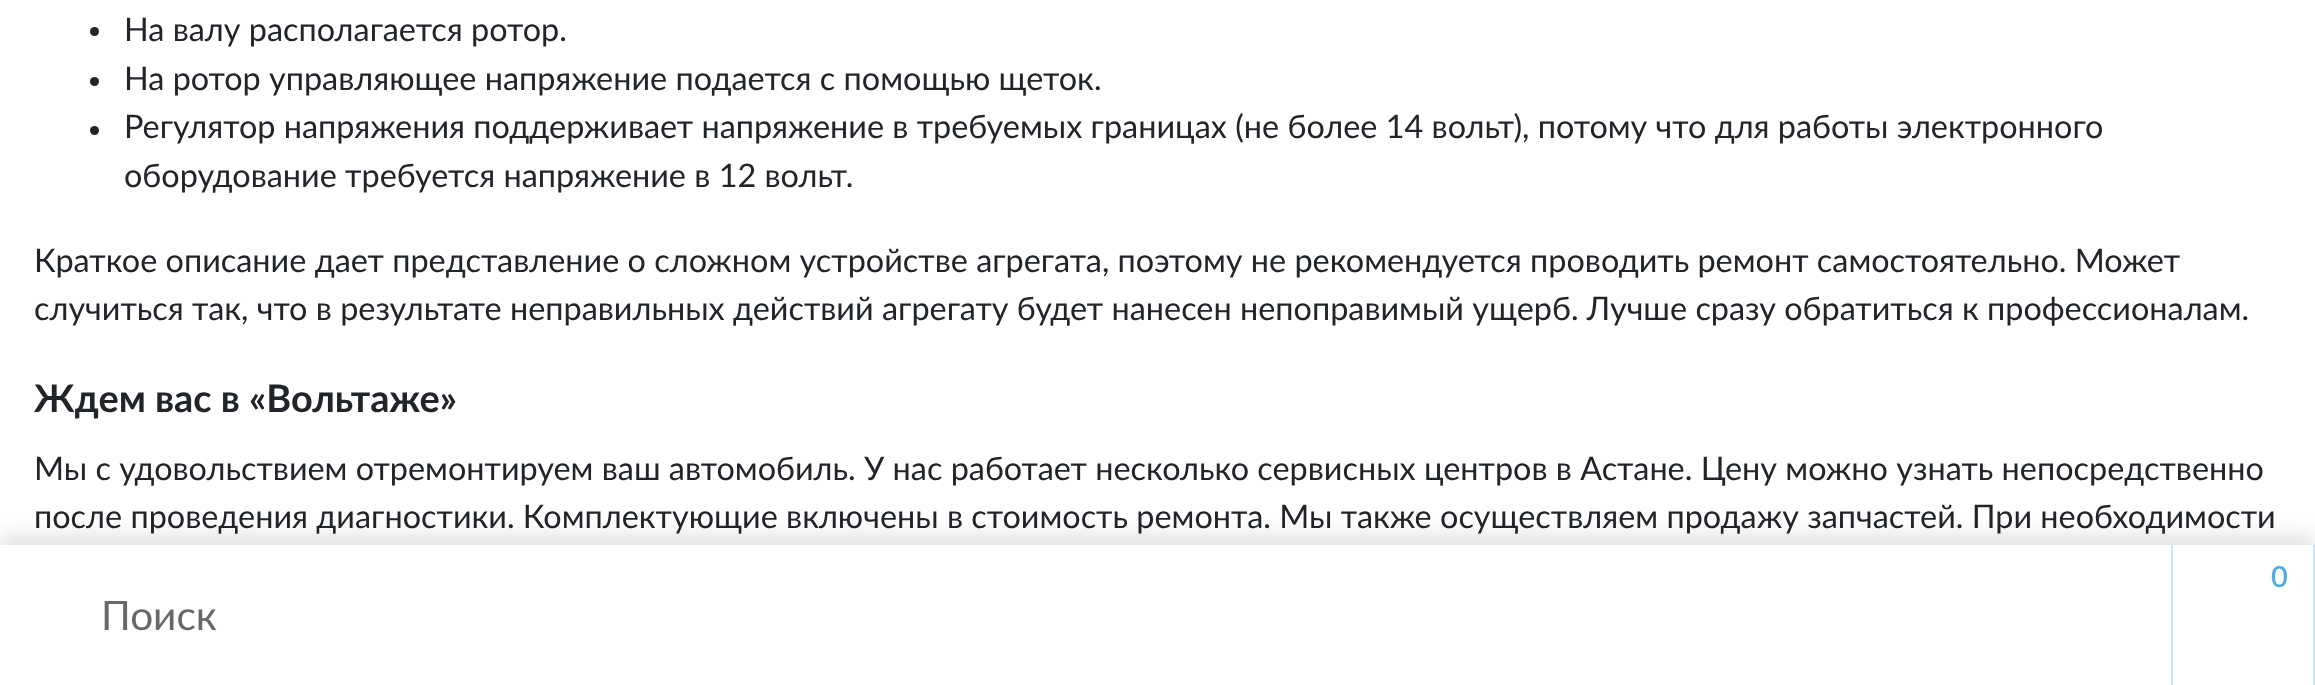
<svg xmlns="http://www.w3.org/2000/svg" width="2315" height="685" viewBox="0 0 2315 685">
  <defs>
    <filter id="blur1" x="-50%" y="-200%" width="200%" height="500%"><feGaussianBlur stdDeviation="9"/></filter>
  </defs>
  <rect width="100%" height="100%" fill="#ffffff"/>
  <circle cx="94.5" cy="31.5" r="4.5" fill="#212529"/>
  <text x="124" y="41" font-family="Lato" font-size="32.4" fill="#212529">На валу располагается ротор.</text>
  <circle cx="94.5" cy="81.5" r="4.5" fill="#212529"/>
  <text x="124" y="90" font-family="Lato" font-size="32.4" fill="#212529">На ротор управляющее напряжение подается с помощью щеток.</text>
  <circle cx="94.5" cy="130.5" r="4.5" fill="#212529"/>
  <text x="124" y="138" font-family="Lato" font-size="32.4" fill="#212529">Регулятор напряжения поддерживает напряжение в требуемых границах (не более 14 вольт), потому что для работы электронного</text>
  <text x="124" y="187" font-family="Lato" font-size="32.4" fill="#212529">оборудование требуется напряжение в 12 вольт.</text>
  <text x="34" y="272" font-family="Lato" font-size="32.4" fill="#212529">Краткое описание дает представление о сложном устройстве агрегата, поэтому не рекомендуется проводить ремонт самостоятельно. Может</text>
  <text x="34" y="320" font-family="Lato" font-size="32.4" fill="#212529">случиться так, что в результате неправильных действий агрегату будет нанесен непоправимый ущерб. Лучше сразу обратиться к профессионалам.</text>
  <text x="34" y="412" font-family="Lato" font-size="37.9" font-weight="bold" fill="#212529">Ждем вас в «Вольтаже»</text>
  <text x="34" y="480" font-family="Lato" font-size="32.4" fill="#212529">Мы с удовольствием отремонтируем ваш автомобиль. У нас работает несколько сервисных центров в Астане. Цену можно узнать непосредственно</text>
  <text x="34" y="528" font-family="Lato" font-size="32.4" fill="#212529">после проведения диагностики. Комплектующие включены в стоимость ремонта. Мы также осуществляем продажу запчастей. При необходимости</text>
  <rect x="0" y="533" width="2315" height="144" fill="#000000" fill-opacity="0.1" filter="url(#blur1)"/>
  <rect x="0" y="545" width="2313" height="140" fill="#ffffff"/>
  <rect x="2313" y="545" width="2" height="140" fill="#cde7f6"/>
  <rect x="2171" y="545" width="2" height="140" fill="#cde7f6"/>
  <text x="2271" y="587" font-family="Lato" font-size="29" font-weight="600" fill="#4eacdf">0</text>
  <text x="101" y="630" font-family="Lato" font-size="40.5" fill="#686868">Поиск</text>
</svg>
